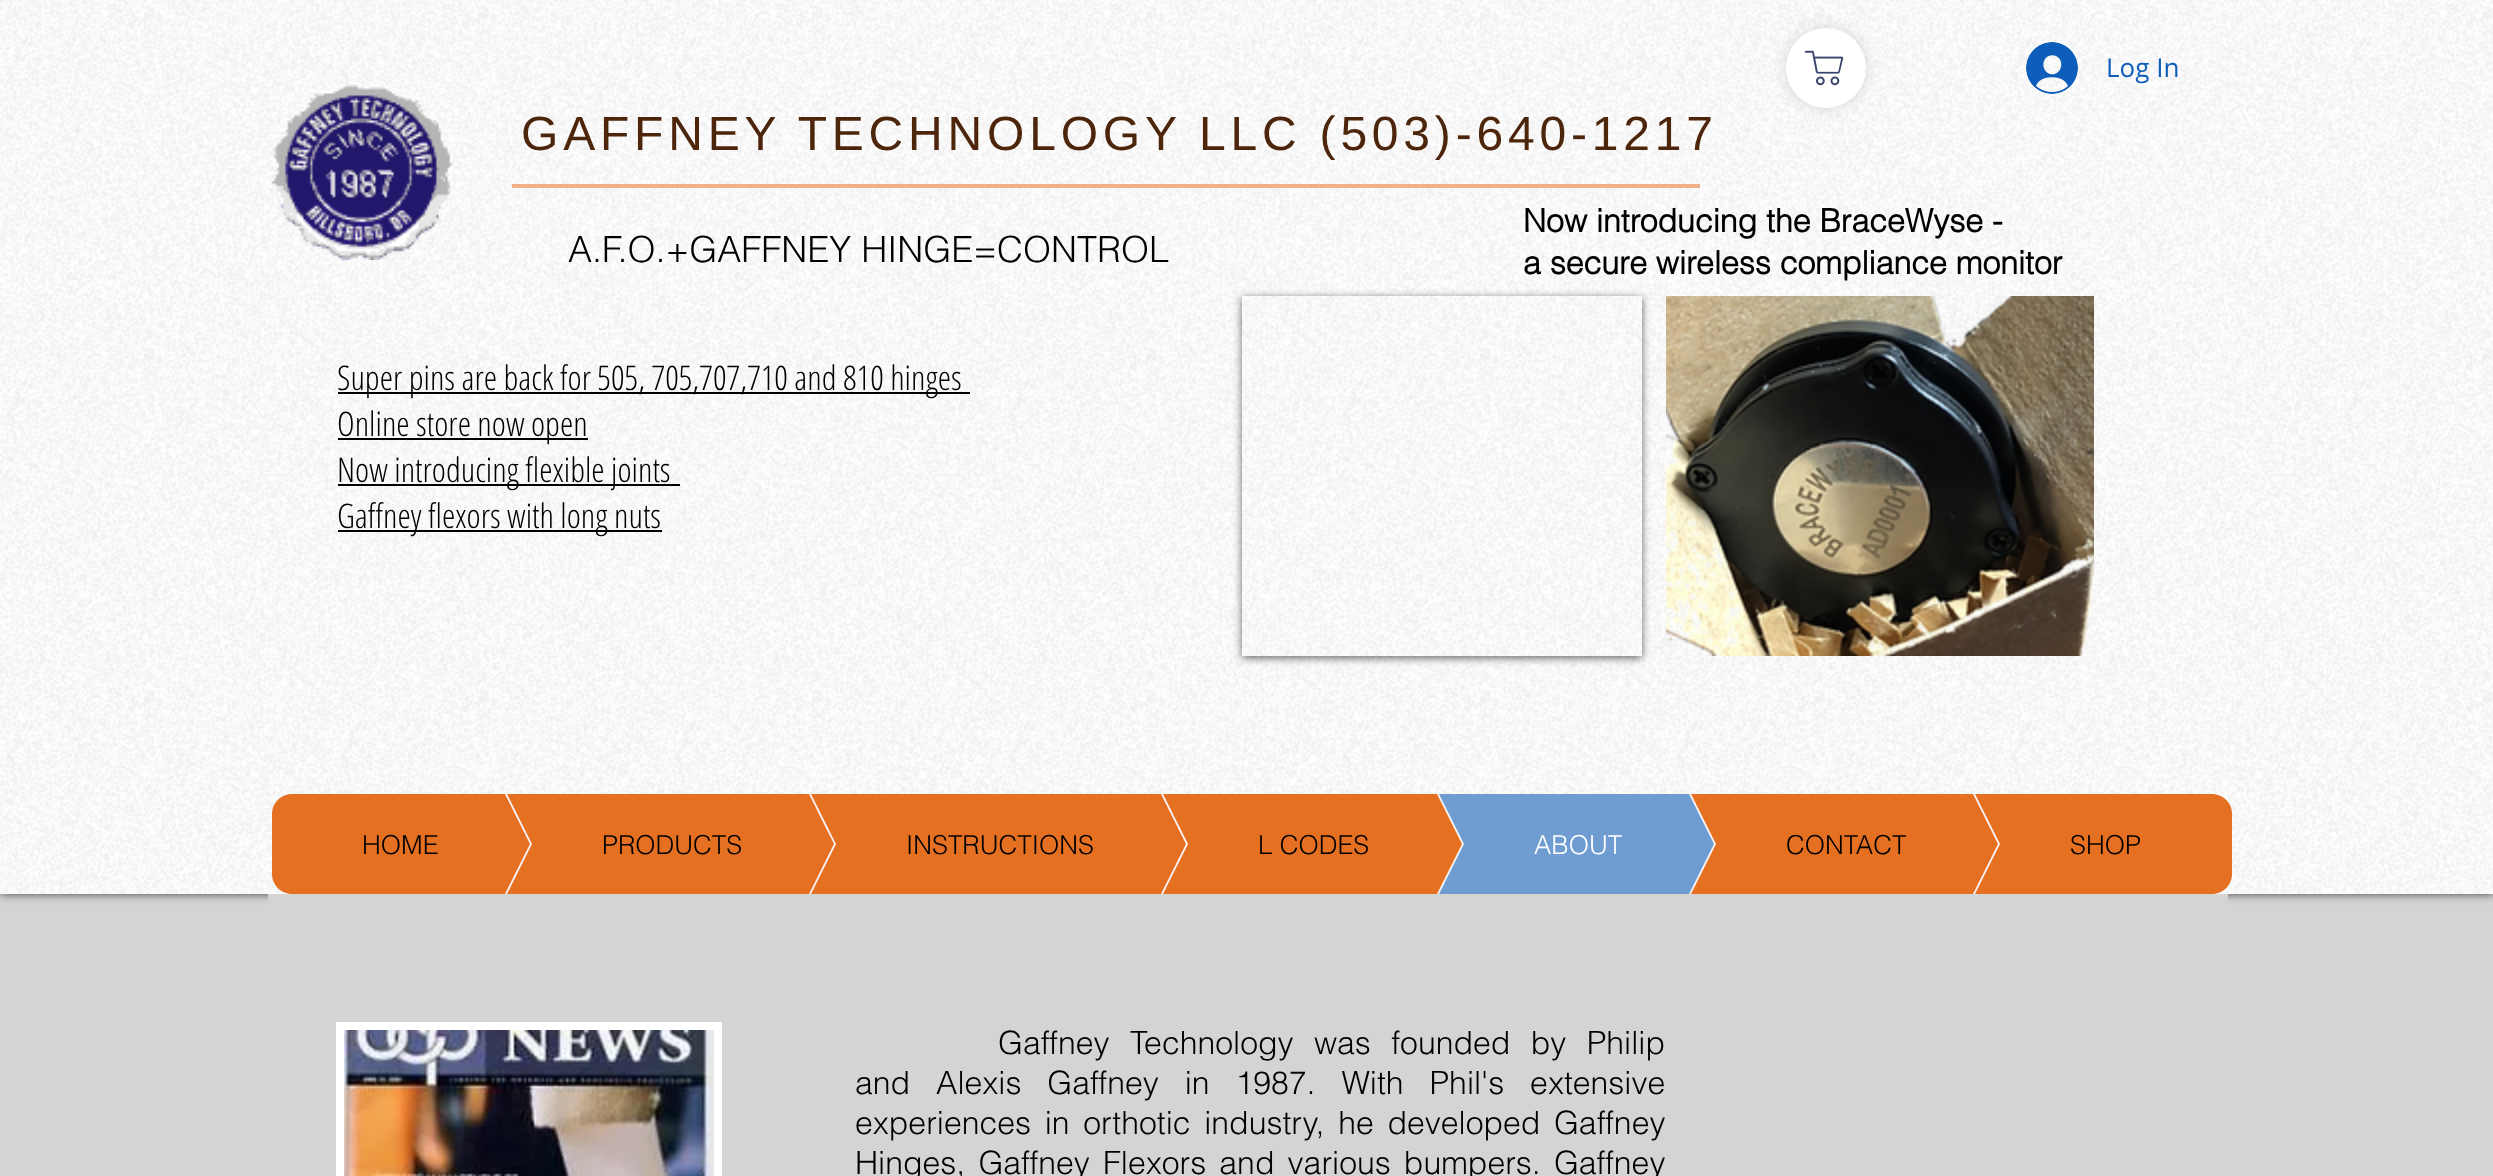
<svg xmlns="http://www.w3.org/2000/svg" width="2493" height="1176" viewBox="0 0 2493 1176">
  <defs>
    <filter id="blur1" x="-50%" y="-200%" width="200%" height="500%"><feGaussianBlur stdDeviation="5"/></filter>
    <filter id="blur2" x="-50%" y="-200%" width="200%" height="500%"><feGaussianBlur stdDeviation="8"/></filter>
    <clipPath id="clip1"><path d="M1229 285H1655V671H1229ZM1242 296H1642V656H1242Z" clip-rule="evenodd"/></clipPath>
    <filter id="blur3" x="-50%" y="-200%" width="200%" height="500%"><feGaussianBlur stdDeviation="4"/></filter>
    <clipPath id="clip2"><rect x="390" y="794" width="140" height="100"/></clipPath>
    <clipPath id="clip3"><rect x="392" y="794" width="140" height="100"/></clipPath>
    <clipPath id="clip4"><rect x="694" y="794" width="140" height="100"/></clipPath>
    <clipPath id="clip5"><rect x="696" y="794" width="140" height="100"/></clipPath>
    <clipPath id="clip6"><rect x="1046" y="794" width="140" height="100"/></clipPath>
    <clipPath id="clip7"><rect x="1048" y="794" width="140" height="100"/></clipPath>
    <clipPath id="clip8"><rect x="1322" y="794" width="140" height="100"/></clipPath>
    <clipPath id="clip9"><rect x="1324" y="794" width="140" height="100"/></clipPath>
    <clipPath id="clip10"><rect x="1574" y="794" width="140" height="100"/></clipPath>
    <clipPath id="clip11"><rect x="1576" y="794" width="140" height="100"/></clipPath>
    <clipPath id="clip12"><rect x="1858" y="794" width="140" height="100"/></clipPath>
    <clipPath id="clip13"><rect x="1860" y="794" width="140" height="100"/></clipPath>
  </defs>
  <rect width="100%" height="100%" fill="#d4d4d4"/>
  <rect x="0" y="0" width="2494" height="894" fill="#000000" fill-opacity="0.7" filter="url(#blur1)"/>
  <rect x="0" y="0" width="2493" height="894" fill="#ffffff"/>
  <image x="0" y="0" width="2493" height="894" href="img1.png"/>
  <rect x="1786" y="28" width="80" height="80" rx="40" fill="#000000" fill-opacity="0.15" filter="url(#blur2)"/>
  <circle cx="1826" cy="68" r="40" fill="#ffffff"/>
  <image x="1804" y="50" width="40" height="36" href="img2.png"/>
  <image x="2026" y="42" width="52" height="52" href="img3.png"/>
  <text x="2106" y="77" font-family="Open Sans" font-size="26" fill="#0d5eba">Log In</text>
  <image x="272" y="82" width="180" height="178" href="img4.png"/>
  <text x="521" y="150" font-family="Liberation Sans" font-size="48" letter-spacing="4.8" fill="#4c250b">GAFFNEY TECHNOLOGY LLC (503)-640-1217</text>
  <rect x="512" y="184" width="1188" height="4" fill="#eeb188"/>
  <text x="568" y="262" font-family="helvetica" font-size="36" font-weight="300" fill="#000000">A.F.O.+GAFFNEY HINGE=CONTROL</text>
  <text x="1523" y="232" font-family="helvetica" font-size="32" font-weight="bold" fill="#000000">Now introducing the BraceWyse -</text>
  <text x="1523" y="274" font-family="helvetica" font-size="32" font-weight="bold" fill="#000000">a secure wireless compliance monitor</text>
  <rect x="338" y="392" width="632" height="2" fill="#000000"/>
  <text x="337" y="390" font-family="Open Sans Condensed" font-size="34" font-weight="300" fill="#000000">Super pins are back for 505, 705,707,710 and 810 hinges</text>
  <rect x="338" y="438" width="250" height="2" fill="#000000"/>
  <text x="337" y="436" font-family="Open Sans Condensed" font-size="34" font-weight="300" fill="#000000">Online store now open</text>
  <rect x="338" y="484" width="342" height="2" fill="#000000"/>
  <text x="337" y="482" font-family="Open Sans Condensed" font-size="34" font-weight="300" fill="#000000">Now introducing flexible joints</text>
  <rect x="338" y="530" width="324" height="2" fill="#000000"/>
  <text x="337" y="528" font-family="Open Sans Condensed" font-size="34" font-weight="300" fill="#000000">Gaffney flexors with long nuts</text>
  <g clip-path="url(#clip1)">
    <rect x="1242" y="298" width="400" height="360" fill="#000000" fill-opacity="0.6" filter="url(#blur3)"/>
  </g>
  <image x="1666" y="296" width="428" height="360" href="img5.png"/>
  <path d="M292 794H390V894H292C281 894 272 885 272 874V814C272 803 281 794 292 794Z" fill="#e57022"/>
  <g clip-path="url(#clip2)">
    <path d="M530 844H390V564Z" fill="#e57022"/>
  </g>
  <path d="M390 844H530L390 1124Z" fill="#e57022"/>
  <text x="362" y="854" font-family="helvetica" font-size="26" font-weight="300" fill="#000000">HOME</text>
  <g clip-path="url(#clip3)">
    <path d="M392 564H532V844Z" fill="#e57022"/>
  </g>
  <path d="M532 1124H392L532 844Z" fill="#e57022"/>
  <rect x="532" y="794" width="162" height="100" fill="#e57022"/>
  <g clip-path="url(#clip4)">
    <path d="M834 844H694V564Z" fill="#e57022"/>
  </g>
  <path d="M694 844H834L694 1124Z" fill="#e57022"/>
  <text x="602" y="854" font-family="helvetica" font-size="26" font-weight="300" fill="#000000">PRODUCTS</text>
  <g clip-path="url(#clip5)">
    <path d="M696 564H836V844Z" fill="#e57022"/>
  </g>
  <path d="M836 1124H696L836 844Z" fill="#e57022"/>
  <rect x="836" y="794" width="210" height="100" fill="#e57022"/>
  <g clip-path="url(#clip6)">
    <path d="M1186 844H1046V564Z" fill="#e57022"/>
  </g>
  <path d="M1046 844H1186L1046 1124Z" fill="#e57022"/>
  <text x="906" y="854" font-family="helvetica" font-size="26" font-weight="300" fill="#000000">INSTRUCTIONS</text>
  <g clip-path="url(#clip7)">
    <path d="M1048 564H1188V844Z" fill="#e57022"/>
  </g>
  <path d="M1188 1124H1048L1188 844Z" fill="#e57022"/>
  <rect x="1188" y="794" width="134" height="100" fill="#e57022"/>
  <g clip-path="url(#clip8)">
    <path d="M1462 844H1322V564Z" fill="#e57022"/>
  </g>
  <path d="M1322 844H1462L1322 1124Z" fill="#e57022"/>
  <text x="1258" y="854" font-family="helvetica" font-size="26" font-weight="300" fill="#000000">L CODES</text>
  <g clip-path="url(#clip9)">
    <path d="M1324 564H1464V844Z" fill="#709dd1"/>
  </g>
  <path d="M1464 1124H1324L1464 844Z" fill="#709dd1"/>
  <rect x="1464" y="794" width="110" height="100" fill="#709dd1"/>
  <g clip-path="url(#clip10)">
    <path d="M1714 844H1574V564Z" fill="#709dd1"/>
  </g>
  <path d="M1574 844H1714L1574 1124Z" fill="#709dd1"/>
  <text x="1534" y="854" font-family="helvetica" font-size="26" font-weight="300" fill="#ffffff">ABOUT</text>
  <g clip-path="url(#clip11)">
    <path d="M1576 564H1716V844Z" fill="#e57022"/>
  </g>
  <path d="M1716 1124H1576L1716 844Z" fill="#e57022"/>
  <rect x="1716" y="794" width="142" height="100" fill="#e57022"/>
  <g clip-path="url(#clip12)">
    <path d="M1998 844H1858V564Z" fill="#e57022"/>
  </g>
  <path d="M1858 844H1998L1858 1124Z" fill="#e57022"/>
  <text x="1786" y="854" font-family="helvetica" font-size="26" font-weight="300" fill="#000000">CONTACT</text>
  <g clip-path="url(#clip13)">
    <path d="M1860 564H2000V844Z" fill="#e57022"/>
  </g>
  <path d="M2000 1124H1860L2000 844Z" fill="#e57022"/>
  <rect x="2000" y="794" width="92" height="100" fill="#e57022"/>
  <path d="M2092 794H2212C2223 794 2232 803 2232 814V874C2232 885 2223 894 2212 894H2092Z" fill="#e57022"/>
  <text x="2070" y="854" font-family="helvetica" font-size="26" font-weight="300" fill="#000000">SHOP</text>
  <rect x="268" y="894" width="1960" height="230" fill="#d4d4d4"/>
  <rect x="336" y="1022" width="386" height="154" fill="#ffffff"/>
  <image x="344" y="1030" width="370" height="146" href="img6.png"/>
  <text x="998" y="1054" word-spacing="11.5" font-family="helvetica" font-size="32" font-weight="300" fill="#000000">Gaffney Technology was founded by Philip</text>
  <text x="855" y="1094" word-spacing="17" font-family="helvetica" font-size="32" font-weight="300" fill="#000000">and Alexis Gaffney in 1987. With Phil's extensive</text>
  <text x="855" y="1134" word-spacing="4.75" font-family="helvetica" font-size="32" font-weight="300" fill="#000000">experiences in orthotic industry, he developed Gaffney</text>
  <text x="855" y="1174" word-spacing="4.25" font-family="helvetica" font-size="32" font-weight="300" fill="#000000">Hinges, Gaffney Flexors and various bumpers. Gaffney</text>
</svg>
